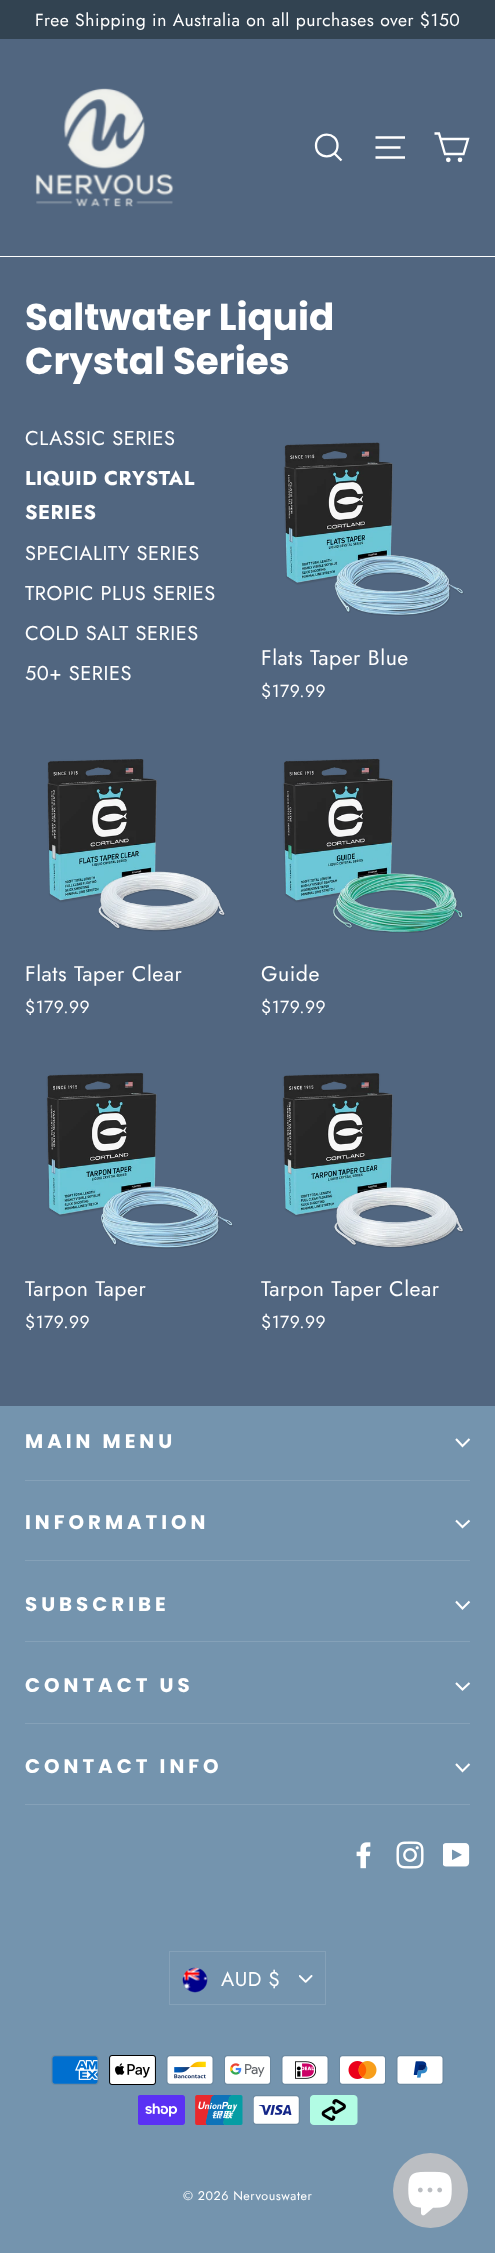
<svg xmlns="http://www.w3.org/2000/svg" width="495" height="2253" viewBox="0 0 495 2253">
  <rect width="100%" height="100%" fill="#516680"/>
  <rect x="0" y="0" width="495" height="39" fill="#324351"/>
  <text x="35" y="26" font-family="Jost" font-size="17.5" letter-spacing="0.53" fill="#ffffff">Free Shipping in Australia on all purchases over $150</text>
  <rect x="0" y="256" width="495" height="1" fill="#ffffff"/>
  <image x="35" y="88" width="139" height="119" href="img1.png"/>
  <path d="M337.5 145.5C337.5 160 316 160 316 145.5C316 131 337.5 131 337.5 145.5ZM341.5 160.5L334.5 153.5" fill="none" stroke="#ffffff" stroke-width="2.3"/>
  <path d="M375.5 137.5H405M375.5 147.5H400.5M375.5 157.5H405" fill="none" stroke="#ffffff" stroke-width="2.3"/>
  <path d="M440.5 139H468L463.5 154H445L439 133.5H434.5" fill="none" stroke="#ffffff" stroke-width="2.3"/>
  <circle cx="448.3" cy="159.8" r="1.2" fill="none" stroke="#ffffff" stroke-width="2.3"/>
  <circle cx="460" cy="159.8" r="1.2" fill="none" stroke="#ffffff" stroke-width="2.3"/>
  <text x="25" y="330" font-family="Poppins" font-size="37.25" font-weight="bold" fill="#ffffff">Saltwater Liquid</text>
  <text x="25" y="374" font-family="Poppins" font-size="37.25" font-weight="bold" fill="#ffffff">Crystal Series</text>
  <text x="25" y="445" font-family="Jost" font-size="20" letter-spacing="0.53" fill="#ffffff">CLASSIC SERIES</text>
  <text x="25" y="485" font-family="Jost" font-size="20" font-weight="bold" letter-spacing="0.53" fill="#ffffff">LIQUID CRYSTAL</text>
  <text x="25" y="519" font-family="Jost" font-size="20" font-weight="bold" letter-spacing="0.53" fill="#ffffff">SERIES</text>
  <text x="25" y="560" font-family="Jost" font-size="20" letter-spacing="0.53" fill="#ffffff">SPECIALITY SERIES</text>
  <text x="25" y="600" font-family="Jost" font-size="20" letter-spacing="0.53" fill="#ffffff">TROPIC PLUS SERIES</text>
  <text x="25" y="640" font-family="Jost" font-size="20" letter-spacing="0.53" fill="#ffffff">COLD SALT SERIES</text>
  <text x="25" y="680" font-family="Jost" font-size="20" letter-spacing="0.53" fill="#ffffff">50+ SERIES</text>
  <image x="283" y="442" width="181" height="174" href="img2.png"/>
  <text x="261" y="665" font-family="Jost" font-size="21.25" letter-spacing="0.53" fill="#ffffff">Flats Taper Blue</text>
  <text x="261" y="697" font-family="Jost" font-size="17.5" letter-spacing="0.53" fill="#ffffff">$179.99</text>
  <image x="47" y="759" width="178" height="173" href="img3.png"/>
  <text x="25" y="981" font-family="Jost" font-size="21.25" letter-spacing="0.53" fill="#ffffff">Flats Taper Clear</text>
  <text x="25" y="1013" font-family="Jost" font-size="17.5" letter-spacing="0.53" fill="#ffffff">$179.99</text>
  <image x="282" y="758" width="181" height="175" href="img4.png"/>
  <text x="261" y="981" font-family="Jost" font-size="21.25" letter-spacing="0.53" fill="#ffffff">Guide</text>
  <text x="261" y="1013" font-family="Jost" font-size="17.5" letter-spacing="0.53" fill="#ffffff">$179.99</text>
  <image x="46" y="1073" width="187" height="176" href="img5.png"/>
  <text x="25" y="1296" font-family="Jost" font-size="21.25" letter-spacing="0.53" fill="#ffffff">Tarpon Taper</text>
  <text x="25" y="1328" font-family="Jost" font-size="17.5" letter-spacing="0.53" fill="#ffffff">$179.99</text>
  <image x="282" y="1073" width="182" height="175" href="img6.png"/>
  <text x="261" y="1296" font-family="Jost" font-size="21.25" letter-spacing="0.53" fill="#ffffff">Tarpon Taper Clear</text>
  <text x="261" y="1328" font-family="Jost" font-size="17.5" letter-spacing="0.53" fill="#ffffff">$179.99</text>
  <rect x="0" y="1406" width="495" height="847" fill="#7494ae"/>
  <text x="25" y="1448" font-family="Poppins" font-size="19.75" font-weight="bold" letter-spacing="4" fill="#ffffff">MAIN MENU</text>
  <path d="M456 1439L462.5 1446L469.5 1439" fill="none" stroke="#ffffff" stroke-width="2.1"/>
  <rect x="25" y="1480" width="445" height="1" fill="#85a1b8"/>
  <text x="25" y="1529" font-family="Poppins" font-size="19.75" font-weight="bold" letter-spacing="4" fill="#ffffff">INFORMATION</text>
  <path d="M456 1520.5L462.5 1527L469.5 1520.5" fill="none" stroke="#ffffff" stroke-width="2.1"/>
  <rect x="25" y="1560" width="445" height="1" fill="#85a1b8"/>
  <text x="25" y="1611" font-family="Poppins" font-size="19.75" font-weight="bold" letter-spacing="4" fill="#ffffff">SUBSCRIBE</text>
  <path d="M456 1601.5L462.5 1608.5L469.5 1601.5" fill="none" stroke="#ffffff" stroke-width="2.1"/>
  <rect x="25" y="1641" width="445" height="1" fill="#85a1b8"/>
  <text x="25" y="1692" font-family="Poppins" font-size="19.75" font-weight="bold" letter-spacing="4" fill="#ffffff">CONTACT US</text>
  <path d="M456 1683L462.5 1689.5L469.5 1683" fill="none" stroke="#ffffff" stroke-width="2.1"/>
  <rect x="25" y="1723" width="445" height="1" fill="#85a1b8"/>
  <text x="25" y="1773" font-family="Poppins" font-size="19.75" font-weight="bold" letter-spacing="4" fill="#ffffff">CONTACT INFO</text>
  <path d="M456 1764L462.5 1771L469.5 1764" fill="none" stroke="#ffffff" stroke-width="2.1"/>
  <rect x="25" y="1804" width="445" height="1" fill="#85a1b8"/>
  <image x="356" y="1842" width="15" height="27" href="img7.png"/>
  <image x="396" y="1841" width="28" height="28" href="img8.png"/>
  <image x="443" y="1843" width="27" height="24" href="img9.png"/>
  <image x="299" y="1975" width="14" height="8" href="img10.png"/>
  <rect x="169.5" y="1951.5" width="156" height="53" fill="none" stroke="#85a1b8"/>
  <image x="182" y="1967" width="26" height="26" href="img11.png"/>
  <text x="221" y="1986" font-family="Jost" font-size="20" letter-spacing="0.5" fill="#ffffff">AUD $</text>
  <image x="51" y="2055" width="48" height="30" href="img12.png"/>
  <image x="109" y="2055" width="47" height="30" href="img13.png"/>
  <image x="166" y="2055" width="48" height="30" href="img14.png"/>
  <image x="224" y="2055" width="47" height="30" href="img15.png"/>
  <image x="281" y="2055" width="48" height="30" href="img16.png"/>
  <image x="339" y="2055" width="47" height="30" href="img17.png"/>
  <image x="396" y="2055" width="48" height="30" href="img18.png"/>
  <image x="138" y="2095" width="47" height="30" href="img19.png"/>
  <image x="195" y="2095" width="48" height="30" href="img20.png"/>
  <image x="253" y="2095" width="47" height="30" href="img21.png"/>
  <image x="310" y="2095" width="48" height="30" href="img22.png"/>
  <text x="183" y="2200" font-family="Jost" font-size="12.5" letter-spacing="0.53" fill="#ffffff">© 2026 Nervouswater</text>
  <circle cx="430.5" cy="2190.5" r="37.5" fill="#bbbec2"/>
  <image x="408" y="2171" width="44" height="45" href="img23.png"/>
</svg>
